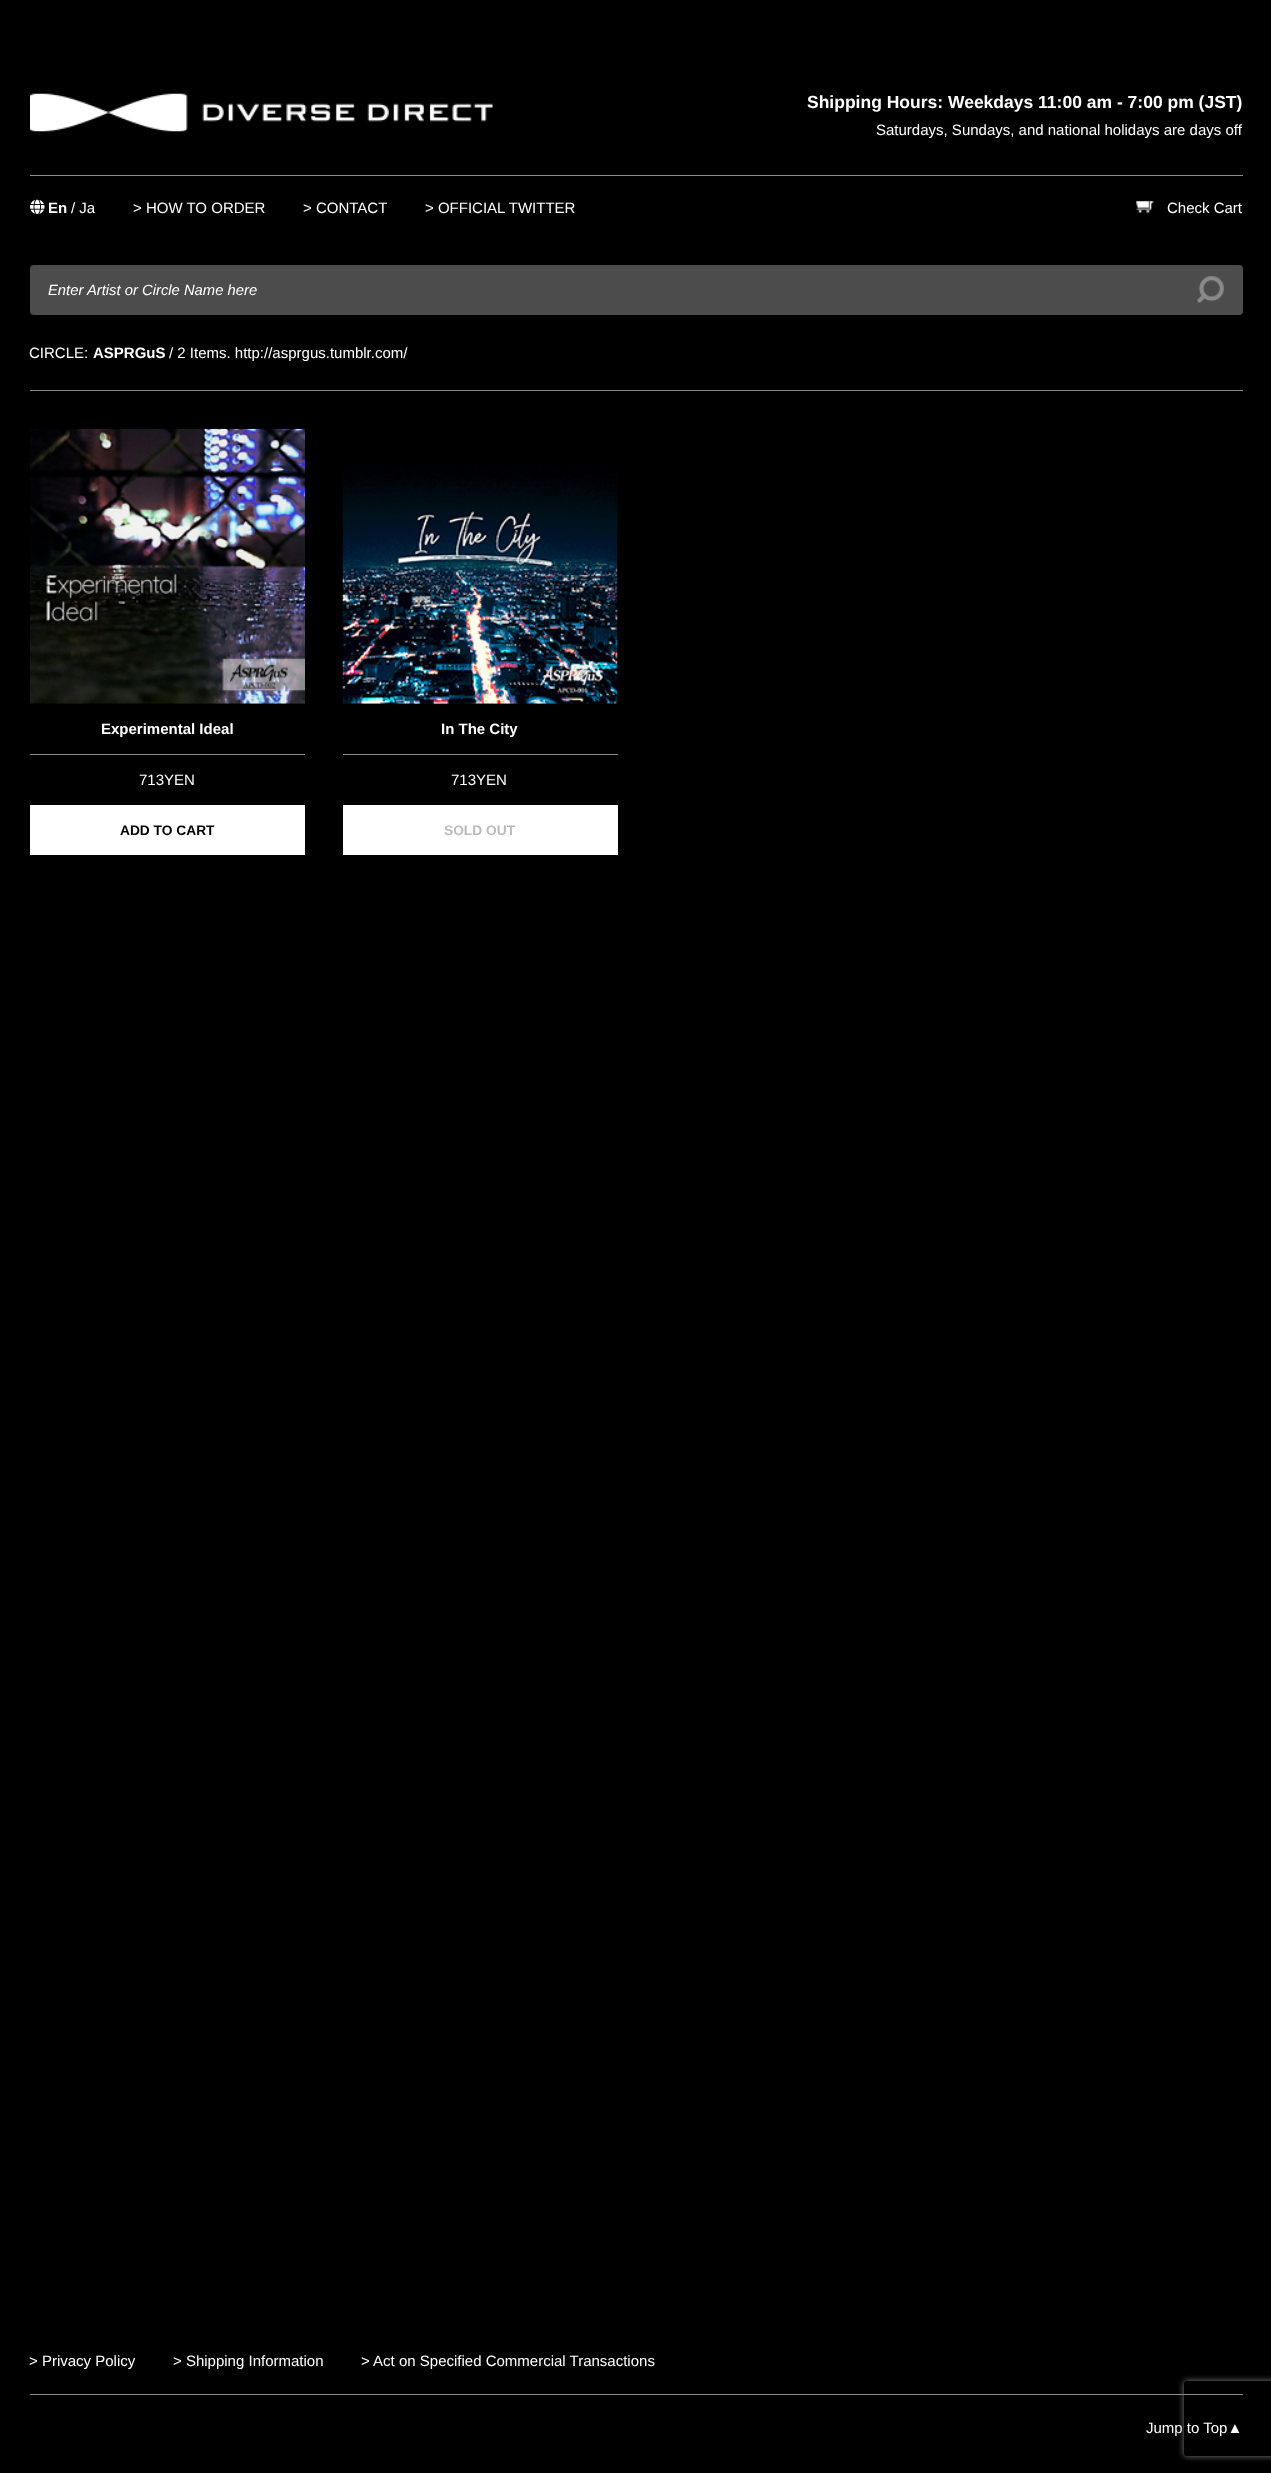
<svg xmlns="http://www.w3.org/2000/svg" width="1271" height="2473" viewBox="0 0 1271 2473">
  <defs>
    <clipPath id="clip1"><path d="M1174 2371H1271V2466H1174ZM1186.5 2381H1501.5C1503 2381 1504 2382 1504 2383.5V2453.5C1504 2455 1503 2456 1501.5 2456H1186.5C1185 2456 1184 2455 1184 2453.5V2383.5C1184 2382 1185 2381 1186.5 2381Z" clip-rule="evenodd"/></clipPath>
    <filter id="blur1" x="-50%" y="-200%" width="200%" height="500%"><feGaussianBlur stdDeviation="3"/></filter>
  </defs>
  <rect width="100%" height="100%" fill="#000000"/>
  <image x="30" y="93" width="463" height="39" href="img1.png"/>
  <text x="807" y="108" font-family="Liberation Sans" font-size="17.5" font-weight="bold" fill="#ffffff">Shipping Hours: Weekdays 11:00 am - 7:00 pm (JST)</text>
  <text x="876" y="135" font-family="Liberation Sans" font-size="15" fill="#ffffff">Saturdays, Sundays, and national holidays are days off</text>
  <rect x="30" y="175" width="1213" height="1" fill="#8c8c8c"/>
  <image x="30" y="199" width="15" height="16" href="img2.png"/>
  <text x="48" y="213" font-family="Liberation Sans" font-size="15" font-weight="bold" fill="#ffffff">En</text>
  <text x="71" y="213" font-family="Liberation Sans" font-size="15" fill="#ffffff">/ Ja</text>
  <text x="133" y="213" font-family="Liberation Sans" font-size="15" fill="#ffffff">&gt; HOW TO ORDER</text>
  <text x="303" y="213" font-family="Liberation Sans" font-size="15" fill="#ffffff">&gt; CONTACT</text>
  <text x="425" y="213" font-family="Liberation Sans" font-size="15" fill="#ffffff">&gt; OFFICIAL TWITTER</text>
  <image x="1136" y="201" width="18" height="12" href="img3.png"/>
  <text x="1167" y="213" font-family="Liberation Sans" font-size="15" fill="#ffffff">Check Cart</text>
  <rect x="30" y="265" width="1213" height="50" rx="4" fill="#4c4c4c"/>
  <image x="1197" y="276" width="27" height="27" href="img4.png"/>
  <text x="48" y="295" font-family="Liberation Sans" font-size="14.8" font-style="italic" fill="#ffffff">Enter Artist or Circle Name here</text>
  <rect x="30" y="390" width="1213" height="1" fill="#8c8c8c"/>
  <text x="29" y="358" font-family="Liberation Sans" font-size="15" fill="#ffffff">CIRCLE:</text>
  <text x="93" y="358" font-family="Liberation Sans" font-size="15" font-weight="bold" fill="#ffffff">ASPRGuS</text>
  <text x="169" y="358" font-family="Liberation Sans" font-size="15" fill="#ffffff">/ 2 Items. http://asprgus.tumblr.com/</text>
  <image x="30" y="428" width="275" height="276" href="img5.png"/>
  <rect x="30" y="754" width="275" height="1" fill="#8c8c8c"/>
  <text x="101" y="734" font-family="Liberation Sans" font-size="15" font-weight="bold" fill="#ffffff">Experimental Ideal</text>
  <text x="139" y="785" font-family="Liberation Sans" font-size="15" fill="#ffffff">713YEN</text>
  <rect x="30" y="805" width="275" height="50" fill="#ffffff"/>
  <text x="120" y="835" font-family="Liberation Sans" font-size="13.75" font-weight="bold" fill="#000000">ADD TO CART</text>
  <image x="342" y="464" width="276" height="240" href="img6.png"/>
  <rect x="343" y="754" width="275" height="1" fill="#8c8c8c"/>
  <text x="441" y="734" font-family="Liberation Sans" font-size="15" font-weight="bold" fill="#ffffff">In The City</text>
  <text x="451" y="785" font-family="Liberation Sans" font-size="15" fill="#ffffff">713YEN</text>
  <rect x="343" y="805" width="275" height="50" fill="#ffffff"/>
  <text x="444" y="835" font-family="Liberation Sans" font-size="13.75" font-weight="bold" fill="#bbbbbb">SOLD OUT</text>
  <rect x="30" y="2394" width="1213" height="1" fill="#8c8c8c"/>
  <text x="29" y="2366" font-family="Liberation Sans" font-size="15" fill="#ffffff">&gt; Privacy Policy</text>
  <text x="173" y="2366" font-family="Liberation Sans" font-size="15" fill="#ffffff">&gt; Shipping Information</text>
  <text x="361" y="2366" font-family="Liberation Sans" font-size="15" fill="#ffffff">&gt; Act on Specified Commercial Transactions</text>
  <text x="1146" y="2433" font-family="Liberation Sans" font-size="15" fill="#ffffff">Jump to Top▲</text>
  <g clip-path="url(#clip1)">
    <rect x="1184" y="2381" width="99" height="75" rx="2.5" fill="#808080" filter="url(#blur1)"/>
  </g>
</svg>
